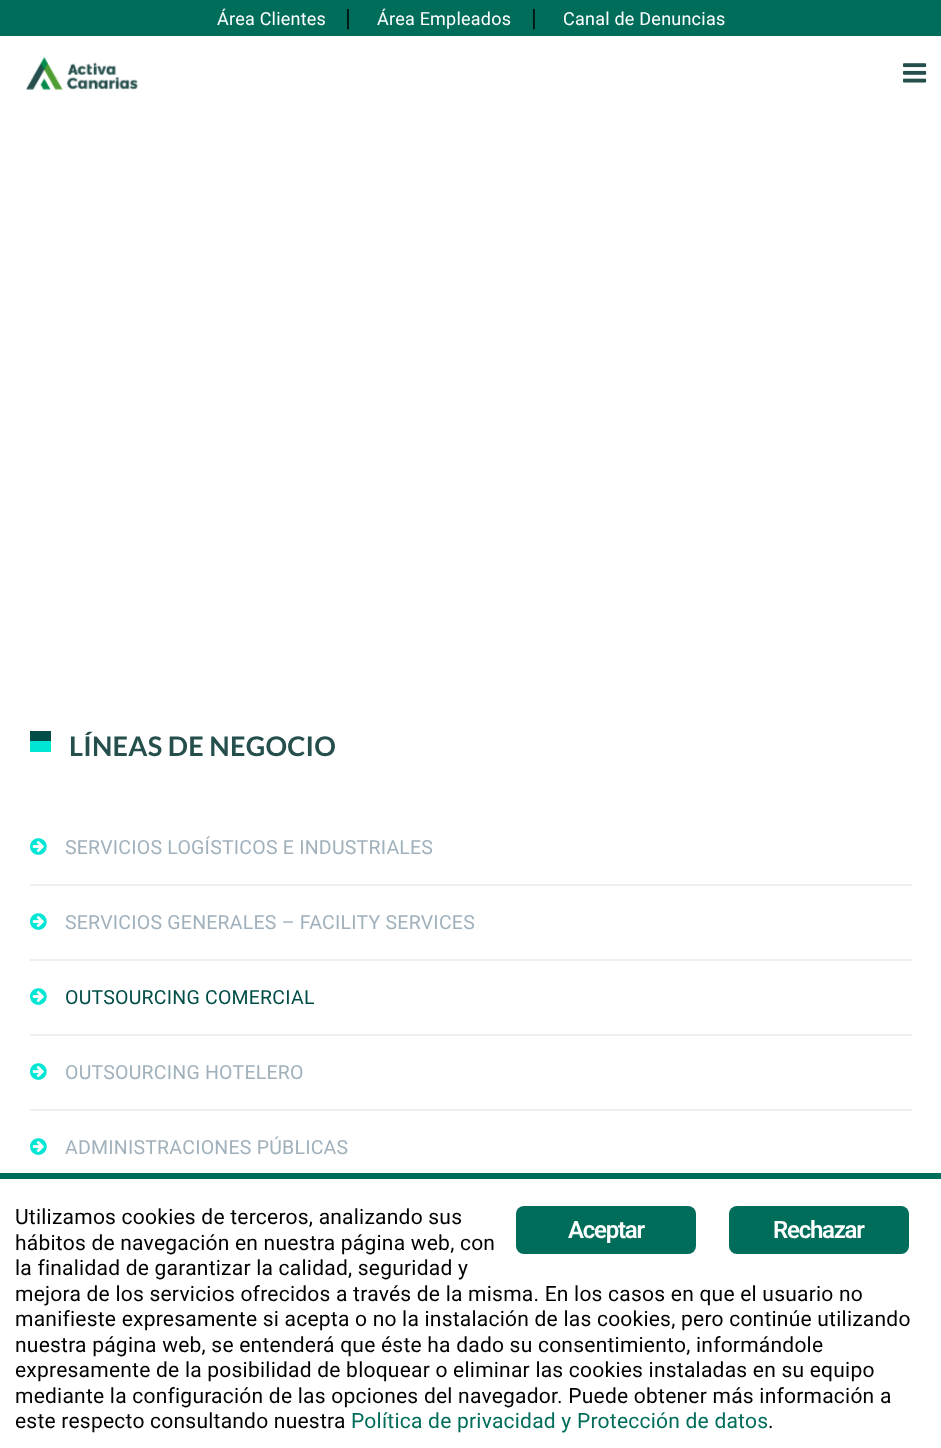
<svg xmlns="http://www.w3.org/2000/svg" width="941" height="1448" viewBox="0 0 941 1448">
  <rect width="100%" height="100%" fill="#ffffff"/>
  <rect x="0" y="0" width="941" height="36" fill="#006d5b"/>
  <text x="217" y="25" font-family="Roboto" font-size="18" letter-spacing="0.23" fill="#ffffff">Área Clientes</text>
  <text x="345" y="26" font-family="Roboto" font-size="24" letter-spacing="0.23" fill="#000e0c">|</text>
  <text x="377" y="25" font-family="Roboto" font-size="18" letter-spacing="0.23" fill="#ffffff">Área Empleados</text>
  <text x="531" y="26" font-family="Roboto" font-size="24" letter-spacing="0.23" fill="#000e0c">|</text>
  <text x="563" y="25" font-family="Roboto" font-size="18" letter-spacing="0.23" fill="#ffffff">Canal de Denuncias</text>
  <image x="26" y="56" width="112" height="34" href="img1.png"/>
  <image x="903" y="63" width="24" height="20" href="img2.png"/>
  <rect x="30" y="731" width="21" height="10" fill="#004d47"/>
  <rect x="30" y="741" width="21" height="11" fill="#00e6d5"/>
  <text x="69" y="756" font-family="Lato" font-size="27" font-weight="bold" letter-spacing="0.23" fill="#254f4c">LÍNEAS DE NEGOCIO</text>
  <rect x="30" y="884" width="882" height="2" fill="#ecf0f1"/>
  <image x="30" y="838" width="17" height="17" href="img3.png"/>
  <text x="65" y="854" font-family="Roboto" font-size="19.5" letter-spacing="0.23" fill="#a1b1bc">SERVICIOS LOGÍSTICOS E INDUSTRIALES</text>
  <rect x="30" y="959" width="882" height="2" fill="#ecf0f1"/>
  <image x="30" y="913" width="17" height="17" href="img3.png"/>
  <text x="65" y="929" font-family="Roboto" font-size="19.5" letter-spacing="0.23" fill="#a1b1bc">SERVICIOS GENERALES – FACILITY SERVICES</text>
  <rect x="30" y="1034" width="882" height="2" fill="#ecf0f1"/>
  <image x="30" y="988" width="17" height="17" href="img3.png"/>
  <text x="65" y="1004" font-family="Roboto" font-size="19.5" letter-spacing="0.23" fill="#004d47">OUTSOURCING COMERCIAL</text>
  <rect x="30" y="1109" width="882" height="2" fill="#ecf0f1"/>
  <image x="30" y="1063" width="17" height="17" href="img3.png"/>
  <text x="65" y="1079" font-family="Roboto" font-size="19.5" letter-spacing="0.23" fill="#a1b1bc">OUTSOURCING HOTELERO</text>
  <image x="30" y="1138" width="17" height="17" href="img3.png"/>
  <text x="65" y="1154" font-family="Roboto" font-size="19.5" letter-spacing="0.23" fill="#a1b1bc">ADMINISTRACIONES PÚBLICAS</text>
  <rect x="0" y="1173" width="941" height="6" fill="#006d5b"/>
  <text x="15" y="1224" font-family="Roboto" font-size="21" letter-spacing="0.23" fill="#000000">Utilizamos cookies de terceros, analizando sus</text>
  <text x="15" y="1250" font-family="Roboto" font-size="21" letter-spacing="0.23" fill="#000000">hábitos de navegación en nuestra página web, con</text>
  <text x="15" y="1275" font-family="Roboto" font-size="21" letter-spacing="0.23" fill="#000000">la finalidad de garantizar la calidad, seguridad y</text>
  <text x="15" y="1301" font-family="Roboto" font-size="21" letter-spacing="0.23" fill="#000000">mejora de los servicios ofrecidos a través de la misma. En los casos en que el usuario no</text>
  <text x="15" y="1326" font-family="Roboto" font-size="21" letter-spacing="0.23" fill="#000000">manifieste expresamente si acepta o no la instalación de las cookies, pero continúe utilizando</text>
  <text x="15" y="1352" font-family="Roboto" font-size="21" letter-spacing="0.23" fill="#000000">nuestra página web, se entenderá que éste ha dado su consentimiento, informándole</text>
  <text x="15" y="1377" font-family="Roboto" font-size="21" letter-spacing="0.23" fill="#000000">expresamente de la posibilidad de bloquear o eliminar las cookies instaladas en su equipo</text>
  <text x="15" y="1403" font-family="Roboto" font-size="21" letter-spacing="0.23" fill="#000000">mediante la configuración de las opciones del navegador. Puede obtener más información a</text>
  <text x="15" y="1428" font-family="Roboto" font-size="21" letter-spacing="0.23" fill="#000000">este respecto consultando nuestra</text>
  <text x="351" y="1428" font-family="Roboto" font-size="21" letter-spacing="0.23" fill="#006d5b">Política de privacidad y Protección de datos</text>
  <text x="768" y="1428" font-family="Roboto" font-size="21" letter-spacing="0.23" fill="#000000">.</text>
  <rect x="516" y="1206" width="180" height="48" rx="8" fill="#006d5b"/>
  <text x="568" y="1238" font-family="Roboto" font-size="24" font-weight="600" letter-spacing="-1.25" fill="#ffffff">Aceptar</text>
  <rect x="729" y="1206" width="180" height="48" rx="8" fill="#006d5b"/>
  <text x="773" y="1238" font-family="Roboto" font-size="24" font-weight="600" letter-spacing="-1.25" fill="#ffffff">Rechazar</text>
</svg>
